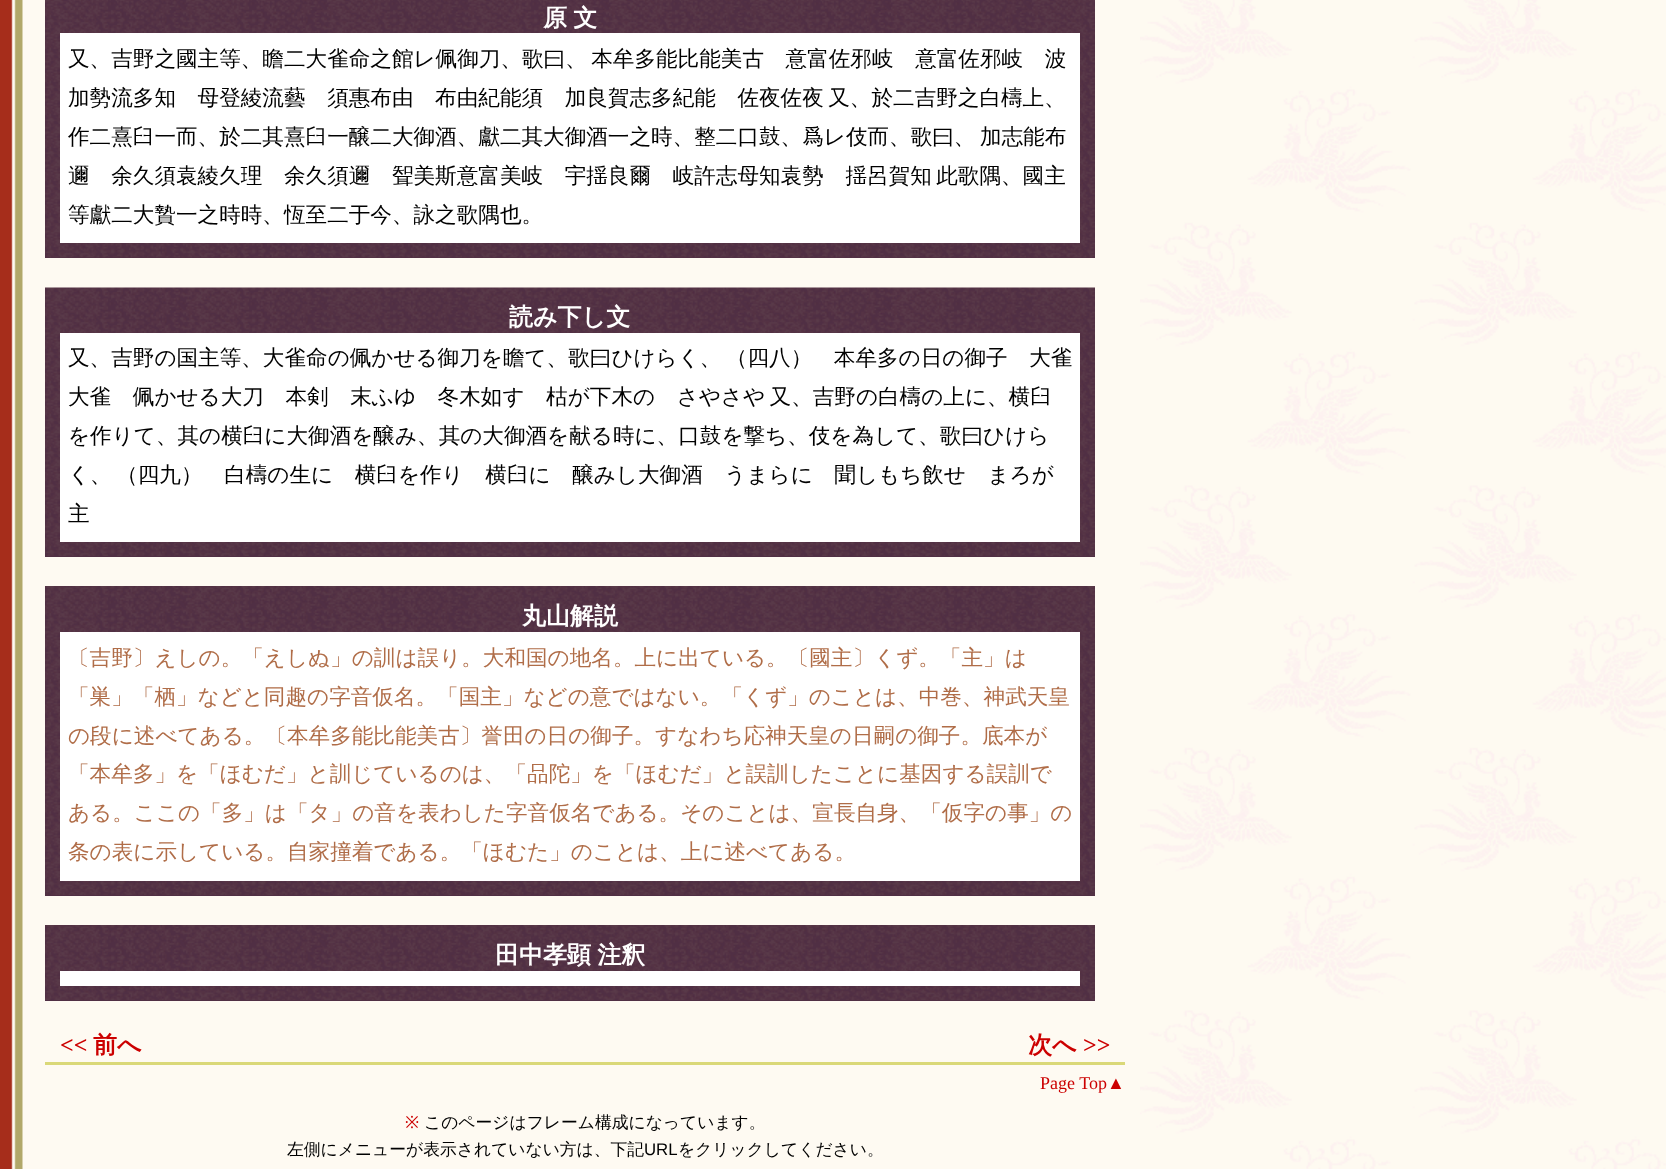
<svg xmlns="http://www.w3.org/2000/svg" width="1666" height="1169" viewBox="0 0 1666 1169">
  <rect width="100%" height="100%" fill="#ffffff"/>
  <image x="1140" y="0" width="526" height="1169" href="img1.png"/>
  <rect x="23" y="0" width="1117" height="1169" fill="#fefaf2"/>
  <image x="0" y="0" width="23" height="1169" href="img2.png"/>
  <rect x="45" y="257" width="1050" height="1" fill="#502f44"/>
  <image x="45" y="0" width="1050" height="258" href="img3.png"/>
  <text x="543" y="26" word-spacing="-1" font-family="WenQuanYi Zen Hei" font-size="24" font-weight="bold" fill="#ffffff">原 文</text>
  <rect x="60" y="33" width="1020" height="210" fill="#ffffff"/>
  <text x="68" y="66" word-spacing="-2" font-family="WenQuanYi Zen Hei" font-size="21.6" font-weight="500" fill="#000000">又、吉野之國主等、瞻二大雀命之館レ佩御刀、歌曰、 本牟多能比能美古　意富佐邪岐　意富佐邪岐　波</text>
  <text x="68" y="105" word-spacing="-2" font-family="WenQuanYi Zen Hei" font-size="21.6" font-weight="500" fill="#000000">加勢流多知　母登綾流藝　須惠布由　布由紀能須　加良賀志多紀能　佐夜佐夜 又、於二吉野之白檮上、</text>
  <text x="68" y="144" word-spacing="-2" font-family="WenQuanYi Zen Hei" font-size="21.6" font-weight="500" fill="#000000">作二熹臼一而、於二其熹臼一醸二大御酒、獻二其大御酒一之時、整二口鼓、爲レ伎而、歌曰、 加志能布</text>
  <text x="68" y="183" word-spacing="-2" font-family="WenQuanYi Zen Hei" font-size="21.6" font-weight="500" fill="#000000">邇　余久須袁綾久理　余久須邇　聟美斯意富美岐　宇揺良爾　岐許志母知袁勢　揺呂賀知 此歌隅、國主</text>
  <text x="68" y="222" font-family="WenQuanYi Zen Hei" font-size="21.6" font-weight="500" fill="#000000">等獻二大贄一之時時、恆至二于今、詠之歌隅也。</text>
  <rect x="45" y="556" width="1050" height="1" fill="#502f44"/>
  <image x="45" y="287" width="1050" height="269" href="img4.png"/>
  <text x="509" y="325" font-family="WenQuanYi Zen Hei" font-size="24" font-weight="bold" fill="#ffffff">読み下し文</text>
  <rect x="60" y="333" width="1020" height="209" fill="#ffffff"/>
  <text x="68" y="365" word-spacing="-2" font-family="WenQuanYi Zen Hei" font-size="21.6" font-weight="500" fill="#000000">又、吉野の国主等、大雀命の佩かせる御刀を瞻て、歌曰ひけらく、 （四八）　本牟多の日の御子　大雀</text>
  <text x="68" y="404" word-spacing="-2" font-family="WenQuanYi Zen Hei" font-size="21.6" font-weight="500" fill="#000000">大雀　佩かせる大刀　本剣　末ふゆ　冬木如す　枯が下木の　さやさや 又、吉野の白檮の上に、横臼</text>
  <text x="68" y="443" font-family="WenQuanYi Zen Hei" font-size="21.6" font-weight="500" fill="#000000">を作りて、其の横臼に大御酒を醸み、其の大御酒を献る時に、口鼓を撃ち、伎を為して、歌曰ひけら</text>
  <text x="68" y="482" word-spacing="-2" font-family="WenQuanYi Zen Hei" font-size="21.6" font-weight="500" fill="#000000">く、 （四九）　白檮の生に　横臼を作り　横臼に　醸みし大御酒　うまらに　聞しもち飲せ　まろが</text>
  <text x="68" y="521" font-family="WenQuanYi Zen Hei" font-size="21.6" font-weight="500" fill="#000000">主</text>
  <rect x="45" y="895" width="1050" height="1" fill="#502f44"/>
  <image x="45" y="586" width="1050" height="309" href="img5.png"/>
  <text x="522" y="624" font-family="WenQuanYi Zen Hei" font-size="24" font-weight="bold" fill="#ffffff">丸山解説</text>
  <rect x="60" y="632" width="1020" height="249" fill="#ffffff"/>
  <text x="68" y="665" font-family="WenQuanYi Zen Hei" font-size="21.6" font-weight="500" fill="#b06d48">〔吉野〕えしの。「えしぬ」の訓は誤り。大和国の地名。上に出ている。〔國主〕くず。「主」は</text>
  <text x="68" y="704" font-family="WenQuanYi Zen Hei" font-size="21.6" font-weight="500" fill="#b06d48">「巣」「栖」などと同趣の字音仮名。「国主」などの意ではない。「くず」のことは、中巻、神武天皇</text>
  <text x="68" y="743" font-family="WenQuanYi Zen Hei" font-size="21.6" font-weight="500" fill="#b06d48">の段に述べてある。〔本牟多能比能美古〕誉田の日の御子。すなわち応神天皇の日嗣の御子。底本が</text>
  <text x="68" y="781" font-family="WenQuanYi Zen Hei" font-size="21.6" font-weight="500" fill="#b06d48">「本牟多」を「ほむだ」と訓じているのは、「品陀」を「ほむだ」と誤訓したことに基因する誤訓で</text>
  <text x="68" y="820" font-family="WenQuanYi Zen Hei" font-size="21.6" font-weight="500" fill="#b06d48">ある。ここの「多」は「タ」の音を表わした字音仮名である。そのことは、宣長自身、「仮字の事」の</text>
  <text x="68" y="859" font-family="WenQuanYi Zen Hei" font-size="21.6" font-weight="500" fill="#b06d48">条の表に示している。自家撞着である。「ほむた」のことは、上に述べてある。</text>
  <rect x="45" y="1000" width="1050" height="1" fill="#502f44"/>
  <image x="45" y="925" width="1050" height="75" href="img6.png"/>
  <text x="495" y="963" word-spacing="-1" font-family="WenQuanYi Zen Hei" font-size="24" font-weight="bold" fill="#ffffff">田中孝顕 注釈</text>
  <rect x="60" y="971" width="1020" height="15" fill="#ffffff"/>
  <text x="60" y="1053" font-family="Liberation Serif" font-size="24" font-weight="bold" fill="#cc0000">&lt;&lt;</text>
  <text x="93" y="1053" font-family="WenQuanYi Zen Hei" font-size="24" font-weight="bold" fill="#cc0000">前へ</text>
  <text x="1028" y="1053" font-family="WenQuanYi Zen Hei" font-size="24" font-weight="bold" fill="#cc0000">次へ</text>
  <text x="1083" y="1053" font-family="Liberation Serif" font-size="24" font-weight="bold" fill="#cc0000">&gt;&gt;</text>
  <rect x="45" y="1062" width="1080" height="3" fill="#dad878"/>
  <text x="1040" y="1089" font-family="Liberation Serif" font-size="18" fill="#cc0000">Page Top▲</text>
  <text x="405" y="1128" font-family="Noto Sans" font-size="16.8" fill="#cc0000">※</text>
  <text x="424" y="1128" font-family="WenQuanYi Zen Hei" font-size="16.8" font-weight="500" fill="#000000">このページはフレーム構成になっています。</text>
  <text x="287" y="1155" font-family="WenQuanYi Zen Hei" font-size="16.8" font-weight="500" fill="#000000">左側にメニューが表示されていない方は、下記</text>
  <text x="644" y="1155" font-family="Liberation Sans" font-size="16.8" fill="#000000">URL</text>
  <text x="678" y="1155" font-family="WenQuanYi Zen Hei" font-size="16.8" font-weight="500" fill="#000000">をクリックしてください。</text>
</svg>
